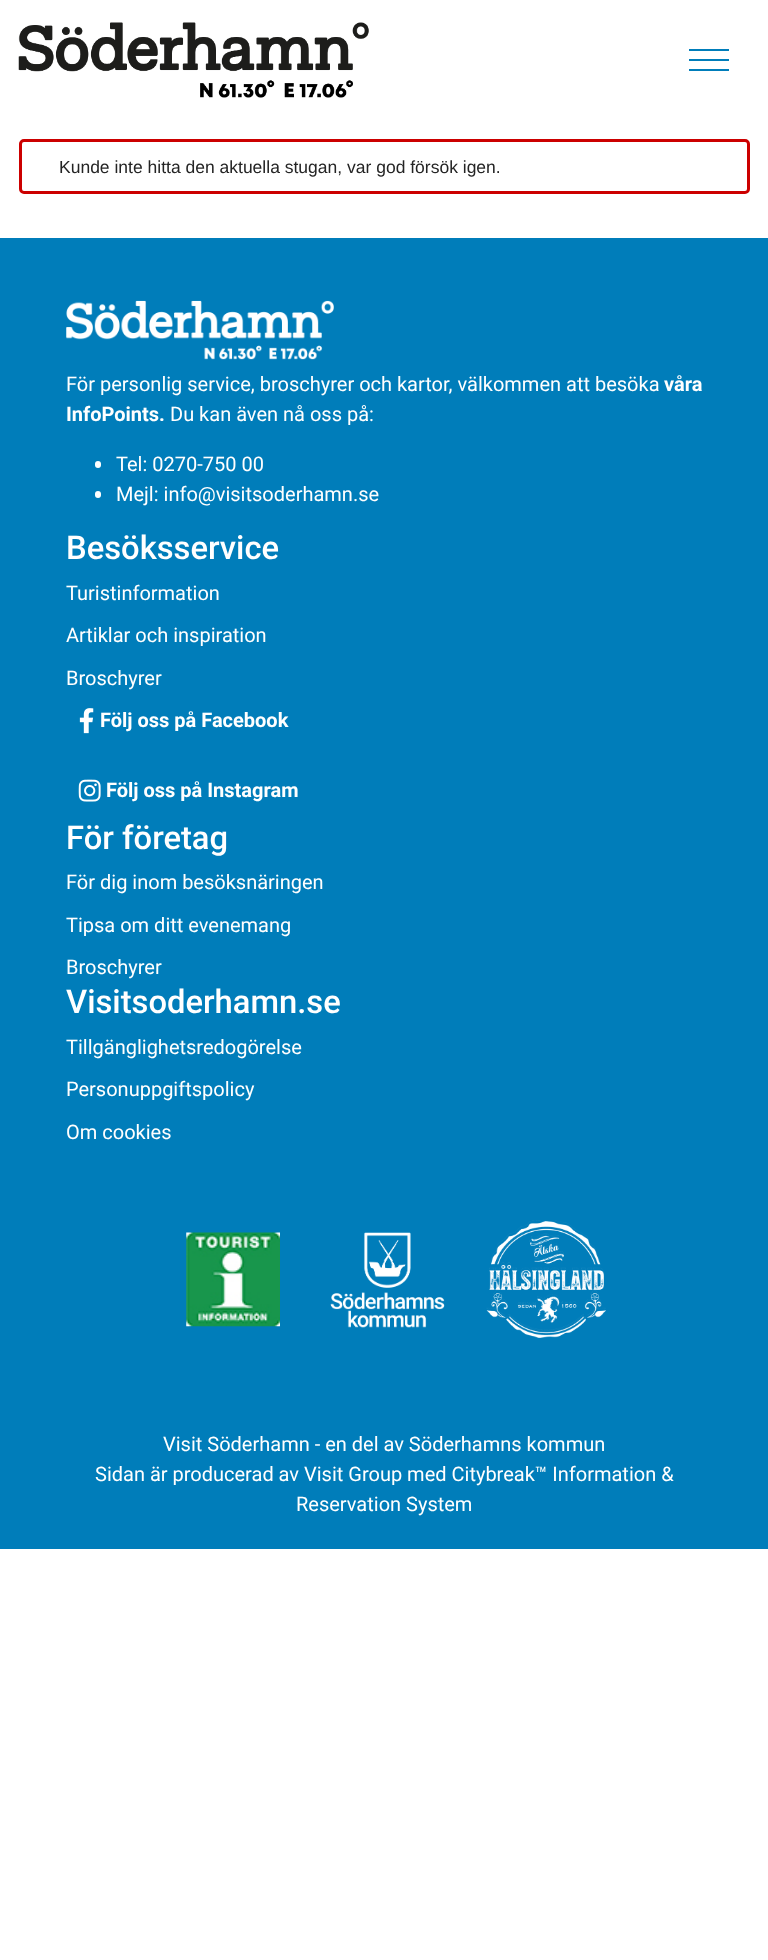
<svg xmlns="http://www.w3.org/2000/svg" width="768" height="1960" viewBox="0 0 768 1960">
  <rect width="100%" height="100%" fill="#ffffff"/>
  <image x="18" y="22" width="351" height="76" href="img1.png"/>
  <rect x="689" y="49" width="40" height="2" fill="#007dba"/>
  <rect x="689" y="59" width="40" height="2" fill="#007dba"/>
  <rect x="689" y="69" width="40" height="2" fill="#007dba"/>
  <rect x="20.5" y="140.5" width="728" height="52" rx="3.5" fill="none" stroke="#cc0000" stroke-width="3"/>
  <text x="59" y="173" font-family="Liberation Sans" font-size="17.5" fill="#242424">Kunde inte hitta den aktuella stugan, var god försök igen.</text>
  <rect x="0" y="238" width="768" height="1311" fill="#007dba"/>
  <image x="66" y="300" width="268" height="60" href="img2.png"/>
  <text x="66" y="391" font-family="Roboto" font-size="20" fill="#ffffff">För personlig service, broschyrer och kartor, välkommen att besöka</text>
  <text x="664" y="391" font-family="Roboto" font-size="20" font-weight="bold" fill="#ffffff">våra</text>
  <text x="66" y="421" font-family="Roboto" font-size="20" font-weight="bold" fill="#ffffff">InfoPoints.</text>
  <text x="170" y="421" font-family="Roboto" font-size="20" fill="#ffffff">Du kan även nå oss på:</text>
  <rect x="95" y="461" width="6" height="7" rx="3" fill="#ffffff"/>
  <text x="116" y="471" font-family="Roboto" font-size="20" fill="#ffffff">Tel: 0270-750 00</text>
  <rect x="95" y="491" width="6" height="7" rx="3" fill="#ffffff"/>
  <text x="116" y="501" font-family="Roboto" font-size="20" fill="#ffffff">Mejl: info@visitsoderhamn.se</text>
  <text x="66" y="559" font-family="Roboto" font-size="32.75" font-weight="500" fill="#ffffff">Besöksservice</text>
  <text x="66" y="600" font-family="Roboto" font-size="20" fill="#ffffff">Turistinformation</text>
  <text x="66" y="642" font-family="Roboto" font-size="20" fill="#ffffff">Artiklar och inspiration</text>
  <text x="66" y="685" font-family="Roboto" font-size="20" fill="#ffffff">Broschyrer</text>
  <image x="79" y="708" width="15" height="26" href="img3.png"/>
  <text x="100" y="727" font-family="Roboto" font-size="20" font-weight="bold" fill="#ffffff">Följ oss på Facebook</text>
  <image x="78" y="779" width="23" height="23" href="img4.png"/>
  <text x="106" y="797" font-family="Roboto" font-size="20" font-weight="bold" fill="#ffffff">Följ oss på Instagram</text>
  <text x="66" y="849" font-family="Roboto" font-size="32.75" font-weight="500" fill="#ffffff">För företag</text>
  <text x="66" y="889" font-family="Roboto" font-size="20" fill="#ffffff">För dig inom besöksnäringen</text>
  <text x="66" y="932" font-family="Roboto" font-size="20" fill="#ffffff">Tipsa om ditt evenemang</text>
  <text x="66" y="974" font-family="Roboto" font-size="20" fill="#ffffff">Broschyrer</text>
  <text x="66" y="1013" font-family="Roboto" font-size="32.75" font-weight="500" fill="#ffffff">Visitsoderhamn.se</text>
  <text x="66" y="1054" font-family="Roboto" font-size="20" fill="#ffffff">Tillgänglighetsredogörelse</text>
  <text x="66" y="1096" font-family="Roboto" font-size="20" fill="#ffffff">Personuppgiftspolicy</text>
  <text x="66" y="1139" font-family="Roboto" font-size="20" fill="#ffffff">Om cookies</text>
  <image x="186" y="1232" width="94" height="95" href="img5.png"/>
  <image x="330" y="1232" width="115" height="96" href="img6.png"/>
  <image x="486" y="1220" width="120" height="118" href="img7.png"/>
  <text x="163" y="1451" font-family="Roboto" font-size="20" fill="#ffffff">Visit Söderhamn - en del av Söderhamns kommun</text>
  <text x="95" y="1481" font-family="Roboto" font-size="20" fill="#ffffff">Sidan är producerad av Visit Group med Citybreak™ Information &amp;</text>
  <text x="296" y="1511" font-family="Roboto" font-size="20" fill="#ffffff">Reservation System</text>
</svg>
